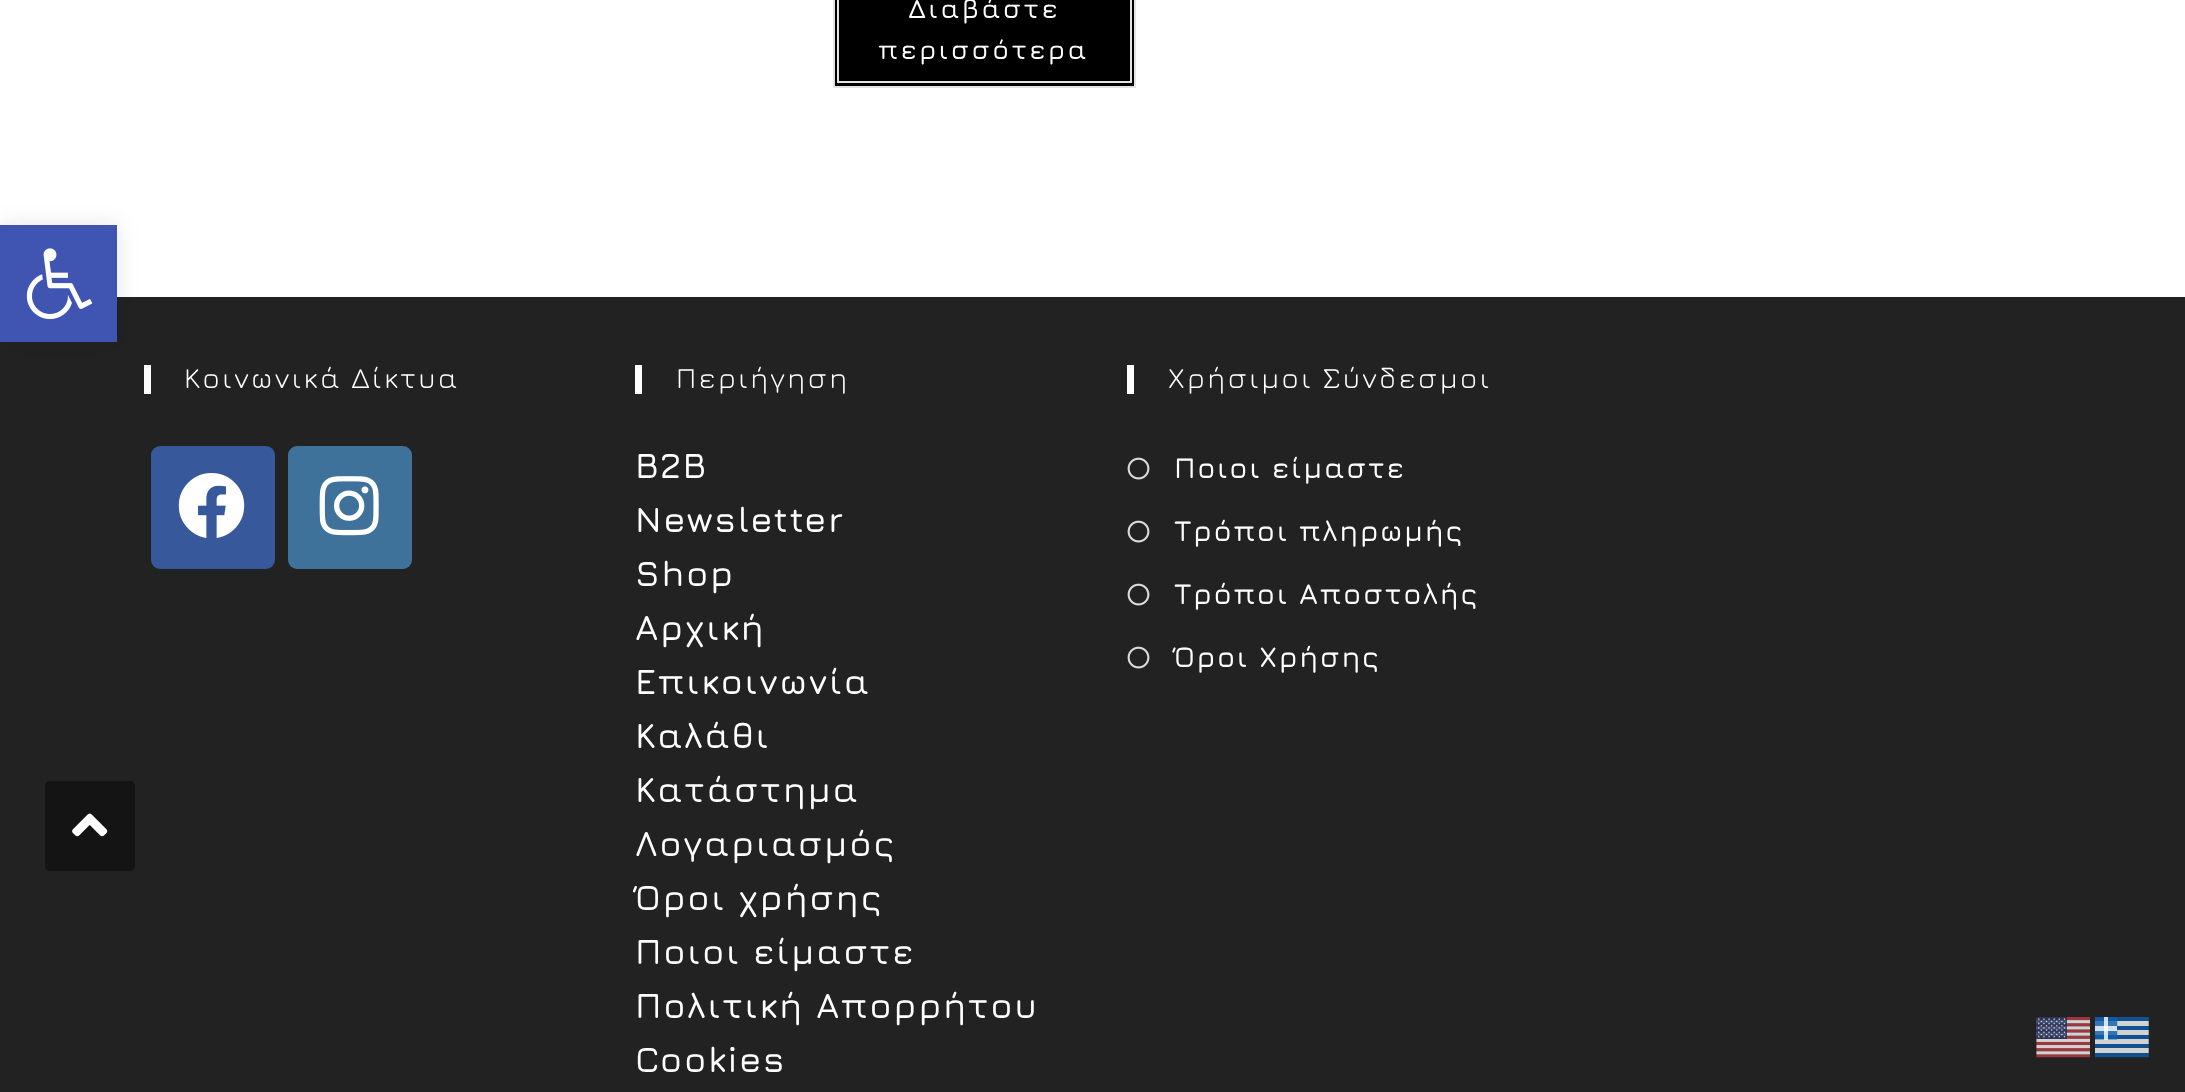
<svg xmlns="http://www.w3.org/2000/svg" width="2185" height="1092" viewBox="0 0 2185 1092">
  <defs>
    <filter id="blur1" x="-50%" y="-200%" width="200%" height="500%"><feGaussianBlur stdDeviation="11"/></filter>
  </defs>
  <rect width="100%" height="100%" fill="#ffffff"/>
  <rect x="0" y="297" width="2185" height="795" fill="#222222"/>
  <rect x="144" y="365" width="7" height="29" fill="#ffffff"/>
  <rect x="0" y="225" width="117" height="117" fill="#000000" fill-opacity="0.1" filter="url(#blur1)"/>
  <rect x="0" y="225" width="117" height="117" fill="#4054b2"/>
  <image x="26" y="248" width="67" height="72" href="img1.png"/>
  <rect x="834" y="-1" width="301" height="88" fill="#000000" stroke="#e4e4e4" stroke-width="2"/>
  <rect x="838" y="-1" width="293" height="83" fill="none" stroke="#e4e4e4" stroke-width="2"/>
  <text x="908" y="18" font-family="Jura" font-size="27" font-weight="600" letter-spacing="2.25" fill="#ffffff">Διαβάστε</text>
  <text x="878" y="59" font-family="Jura" font-size="27" font-weight="600" letter-spacing="2.25" fill="#ffffff">περισσότερα</text>
  <text x="184" y="388" font-family="Jura" font-size="29.25" letter-spacing="2.25" fill="#ffffff">Κοινωνικά Δίκτυα</text>
  <rect x="151" y="446" width="124" height="123" rx="9" fill="#37589b"/>
  <image x="178" y="473" width="67" height="65" href="img2.png"/>
  <rect x="288" y="446" width="124" height="123" rx="9" fill="#3f729b"/>
  <image x="319" y="476" width="60" height="60" href="img3.png"/>
  <rect x="635" y="365" width="7" height="29" fill="#ffffff"/>
  <text x="676" y="388" font-family="Jura" font-size="29.25" letter-spacing="2.25" fill="#ffffff">Περιήγηση</text>
  <text x="635" y="478" font-family="Jura" font-size="36" font-weight="600" letter-spacing="1.6" fill="#ffffff">B2B</text>
  <text x="635" y="532" font-family="Jura" font-size="36" font-weight="600" letter-spacing="1.6" fill="#ffffff">Newsletter</text>
  <text x="635" y="586" font-family="Jura" font-size="36" font-weight="600" letter-spacing="1.6" fill="#ffffff">Shop</text>
  <text x="635" y="640" font-family="Jura" font-size="36" font-weight="600" letter-spacing="1.6" fill="#ffffff">Αρχική</text>
  <text x="635" y="694" font-family="Jura" font-size="36" font-weight="600" letter-spacing="1.6" fill="#ffffff">Επικοινωνία</text>
  <text x="635" y="748" font-family="Jura" font-size="36" font-weight="600" letter-spacing="1.6" fill="#ffffff">Καλάθι</text>
  <text x="635" y="802" font-family="Jura" font-size="36" font-weight="600" letter-spacing="1.6" fill="#ffffff">Κατάστημα</text>
  <text x="635" y="856" font-family="Jura" font-size="36" font-weight="600" letter-spacing="1.6" fill="#ffffff">Λογαριασμός</text>
  <text x="635" y="910" font-family="Jura" font-size="36" font-weight="600" letter-spacing="1.6" fill="#ffffff">Όροι χρήσης</text>
  <text x="635" y="964" font-family="Jura" font-size="36" font-weight="600" letter-spacing="1.6" fill="#ffffff">Ποιοι είμαστε</text>
  <text x="635" y="1018" font-family="Jura" font-size="36" font-weight="600" letter-spacing="1.6" fill="#ffffff">Πολιτική Απορρήτου</text>
  <text x="635" y="1072" font-family="Jura" font-size="36" font-weight="600" letter-spacing="1.6" fill="#ffffff">Cookies</text>
  <rect x="1127" y="365" width="7" height="29" fill="#ffffff"/>
  <text x="1168" y="388" font-family="Jura" font-size="29.25" letter-spacing="2.25" fill="#ffffff">Χρήσιμοι Σύνδεσμοι</text>
  <image x="1127" y="457" width="23" height="23" href="img4.png"/>
  <text x="1174" y="478" font-family="Jura" font-size="29.25" font-weight="600" letter-spacing="1.6" fill="#ffffff">Ποιοι είμαστε</text>
  <image x="1127" y="520" width="23" height="23" href="img4.png"/>
  <text x="1174" y="541" font-family="Jura" font-size="29.25" font-weight="600" letter-spacing="1.6" fill="#ffffff">Τρόποι πληρωμής</text>
  <image x="1127" y="583" width="23" height="23" href="img4.png"/>
  <text x="1174" y="604" font-family="Jura" font-size="29.25" font-weight="600" letter-spacing="1.6" fill="#ffffff">Τρόποι Αποστολής</text>
  <image x="1127" y="646" width="23" height="23" href="img4.png"/>
  <text x="1174" y="667" font-family="Jura" font-size="29.25" font-weight="600" letter-spacing="1.6" fill="#ffffff">Όροι Χρήσης</text>
  <rect x="45" y="781" width="90" height="90" rx="5" fill="#141414"/>
  <image x="72" y="813" width="36" height="24" href="img5.png"/>
  <image x="2036" y="1017" width="54" height="41" href="img6.png"/>
  <image x="2095" y="1017" width="54" height="41" href="img7.png"/>
</svg>
